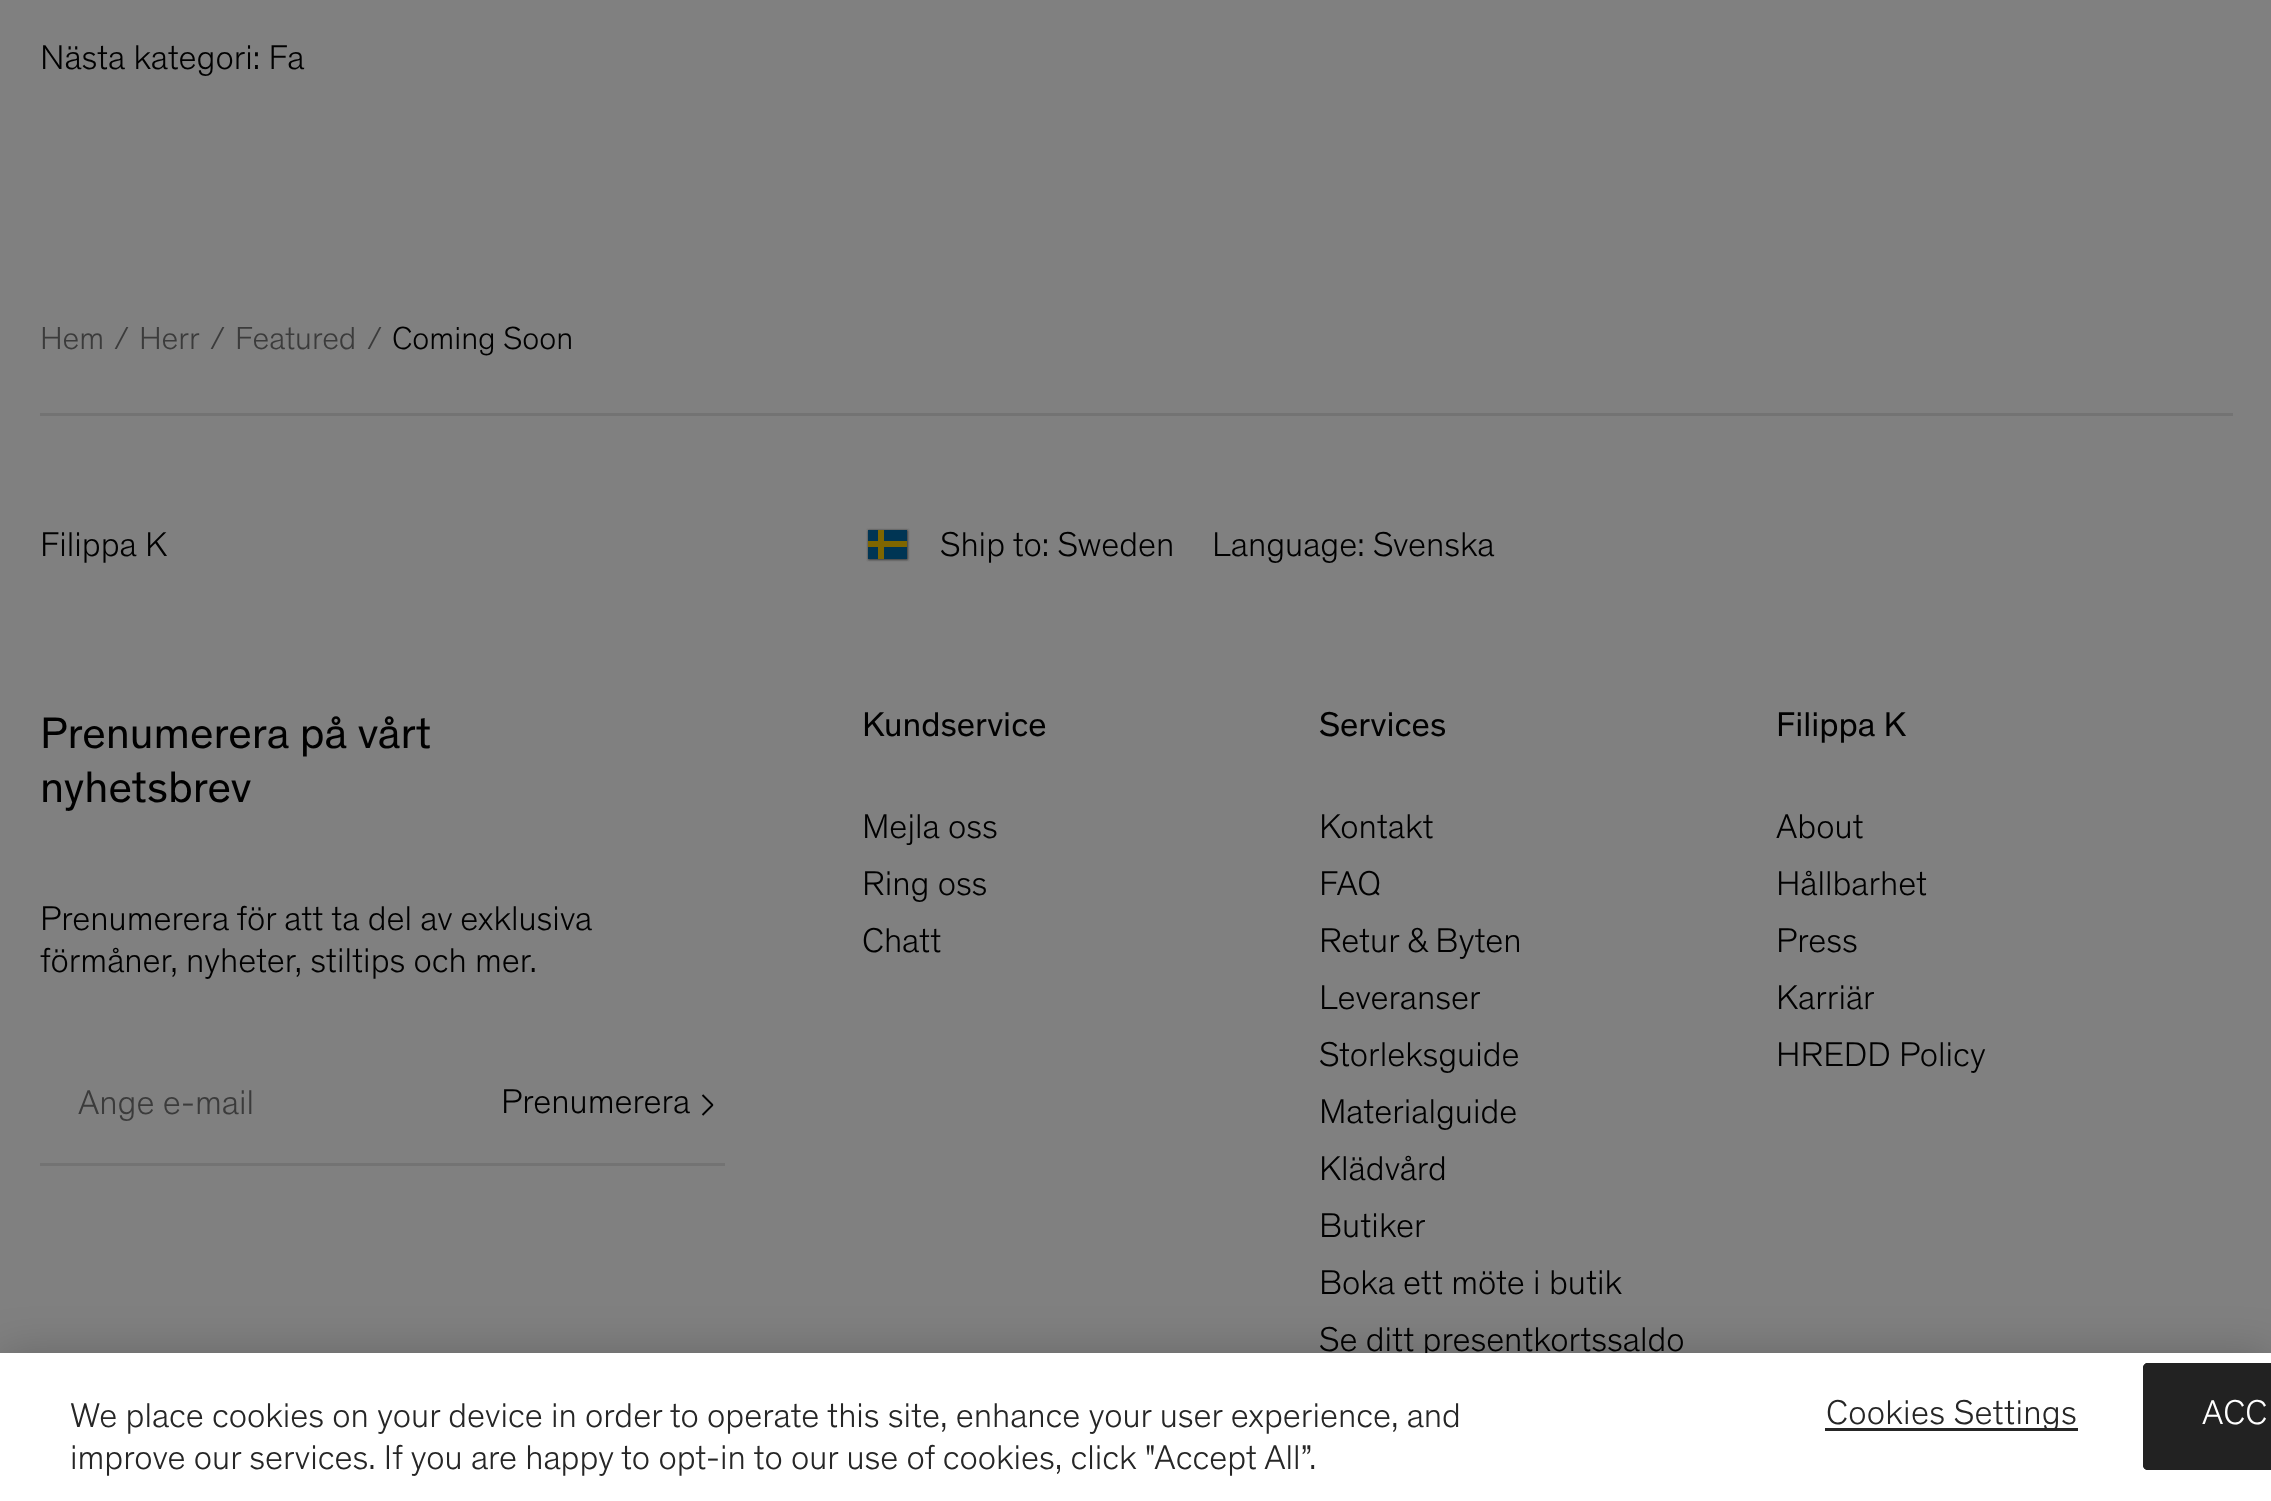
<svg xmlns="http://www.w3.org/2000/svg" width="2271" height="1501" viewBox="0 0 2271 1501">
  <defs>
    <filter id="blur1" x="-50%" y="-200%" width="200%" height="500%"><feGaussianBlur stdDeviation="1"/></filter>
    <filter id="blur2" x="-50%" y="-200%" width="200%" height="500%"><feGaussianBlur stdDeviation="22.5"/></filter>
  </defs>
  <rect width="100%" height="100%" fill="#808080"/>
  <text x="40" y="69" font-family="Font" font-size="35" font-weight="300" fill="#000000">Nästa kategori: Fa</text>
  <rect x="40" y="413" width="2193" height="3" fill="#737373"/>
  <text x="40" y="349" font-family="Font" font-size="32.5" font-weight="300" fill="#3b3b3b">Hem</text>
  <text x="114" y="349" font-family="Font" font-size="32.5" font-weight="300" fill="#3b3b3b">/</text>
  <text x="139" y="349" font-family="Font" font-size="32.5" font-weight="300" fill="#3b3b3b">Herr</text>
  <text x="210" y="349" font-family="Font" font-size="32.5" font-weight="300" fill="#3b3b3b">/</text>
  <text x="235" y="349" font-family="Font" font-size="32.5" font-weight="300" fill="#3b3b3b">Featured</text>
  <text x="367" y="349" font-family="Font" font-size="32.5" font-weight="300" fill="#3b3b3b">/</text>
  <text x="392" y="349" font-family="Font" font-size="32.5" font-weight="300" fill="#000000">Coming Soon</text>
  <text x="40" y="556" font-family="Font" font-size="35" font-weight="300" fill="#000000">Filippa K</text>
  <rect x="868" y="530" width="40" height="30" fill="#3b3b3b" filter="url(#blur1)"/>
  <rect x="868" y="530" width="10" height="11" fill="#003554"/>
  <rect x="868" y="547" width="10" height="12" fill="#003554"/>
  <rect x="868" y="541" width="10" height="6" fill="#7f6600"/>
  <rect x="878" y="530" width="6" height="29" fill="#7f6600"/>
  <rect x="884" y="541" width="23" height="6" fill="#7f6600"/>
  <rect x="884" y="547" width="23" height="12" fill="#003554"/>
  <rect x="884" y="530" width="23" height="11" fill="#003554"/>
  <text x="940" y="556" font-family="Font" font-size="35" font-weight="300" fill="#000000">Ship to: Sweden</text>
  <text x="1212" y="556" font-family="Font" font-size="35" font-weight="300" fill="#000000">Language: Svenska</text>
  <text x="40" y="748" font-family="Font" font-size="45" fill="#000000">Prenumerera på vårt</text>
  <text x="40" y="802" font-family="Font" font-size="45" fill="#000000">nyhetsbrev</text>
  <text x="40" y="930" font-family="Font" font-size="35" font-weight="300" fill="#000000">Prenumerera för att ta del av exklusiva</text>
  <text x="40" y="972" font-family="Font" font-size="35" font-weight="300" fill="#000000">förmåner, nyheter, stiltips och mer.</text>
  <rect x="40" y="1163" width="685" height="3" fill="#737373"/>
  <text x="78" y="1114" font-family="Font" font-size="35" font-weight="300" fill="#3b3b3b">Ange e-mail</text>
  <text x="501" y="1113" font-family="Font" font-size="35" font-weight="300" fill="#000000">Prenumerera</text>
  <path d="M702.5 1115L712.5 1105L702.5 1095" fill="none" stroke="#000000" stroke-width="1.9" stroke-linejoin="bevel"/>
  <text x="862" y="736" font-family="Font" font-size="35" fill="#000000">Kundservice</text>
  <text x="862" y="838" font-family="Font" font-size="35" font-weight="300" fill="#000000">Mejla oss</text>
  <text x="862" y="895" font-family="Font" font-size="35" font-weight="300" fill="#000000">Ring oss</text>
  <text x="862" y="952" font-family="Font" font-size="35" font-weight="300" fill="#000000">Chatt</text>
  <text x="1319" y="736" font-family="Font" font-size="35" fill="#000000">Services</text>
  <text x="1319" y="838" font-family="Font" font-size="35" font-weight="300" fill="#000000">Kontakt</text>
  <text x="1319" y="895" font-family="Font" font-size="35" font-weight="300" fill="#000000">FAQ</text>
  <text x="1319" y="952" font-family="Font" font-size="35" font-weight="300" fill="#000000">Retur &amp; Byten</text>
  <text x="1319" y="1009" font-family="Font" font-size="35" font-weight="300" fill="#000000">Leveranser</text>
  <text x="1319" y="1066" font-family="Font" font-size="35" font-weight="300" fill="#000000">Storleksguide</text>
  <text x="1319" y="1123" font-family="Font" font-size="35" font-weight="300" fill="#000000">Materialguide</text>
  <text x="1319" y="1180" font-family="Font" font-size="35" font-weight="300" fill="#000000">Klädvård</text>
  <text x="1319" y="1237" font-family="Font" font-size="35" font-weight="300" fill="#000000">Butiker</text>
  <text x="1319" y="1294" font-family="Font" font-size="35" font-weight="300" fill="#000000">Boka ett möte i butik</text>
  <text x="1319" y="1351" font-family="Font" font-size="35" font-weight="300" fill="#000000">Se ditt presentkortssaldo</text>
  <text x="1776" y="736" font-family="Font" font-size="35" fill="#000000">Filippa K</text>
  <text x="1776" y="838" font-family="Font" font-size="35" font-weight="300" fill="#000000">About</text>
  <text x="1776" y="895" font-family="Font" font-size="35" font-weight="300" fill="#000000">Hållbarhet</text>
  <text x="1776" y="952" font-family="Font" font-size="35" font-weight="300" fill="#000000">Press</text>
  <text x="1776" y="1009" font-family="Font" font-size="35" font-weight="300" fill="#000000">Karriär</text>
  <text x="1776" y="1066" font-family="Font" font-size="35" font-weight="300" fill="#000000">HREDD Policy</text>
  <rect x="0" y="1353" width="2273" height="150" fill="#000000" fill-opacity="0.2" filter="url(#blur2)"/>
  <rect x="0" y="1353" width="2271" height="148" fill="#ffffff"/>
  <text x="70" y="1427" font-family="Font" font-size="35" font-weight="300" fill="#262626">We place cookies on your device in order to operate this site, enhance your user experience, and</text>
  <text x="70" y="1469" font-family="Font" font-size="35" font-weight="300" fill="#262626">improve our services. If you are happy to opt-in to our use of cookies, click "Accept All”.</text>
  <rect x="1825" y="1428" width="253" height="3" fill="#262626"/>
  <text x="1826" y="1424" font-family="Font" font-size="35" font-weight="300" letter-spacing="0.3" fill="#262626">Cookies Settings</text>
  <path d="M2148 1363H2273V1470H2148C2145 1470 2143 1468 2143 1465V1368C2143 1365 2145 1363 2148 1363Z" fill="#222222"/>
  <rect x="2144.5" y="1364.5" width="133" height="104" rx="3.5" fill="none" stroke="#222222" stroke-width="3"/>
  <text x="2202" y="1424" font-family="Font" font-size="35" font-weight="300" letter-spacing="0.3" fill="#ffffff">ACC</text>
</svg>
